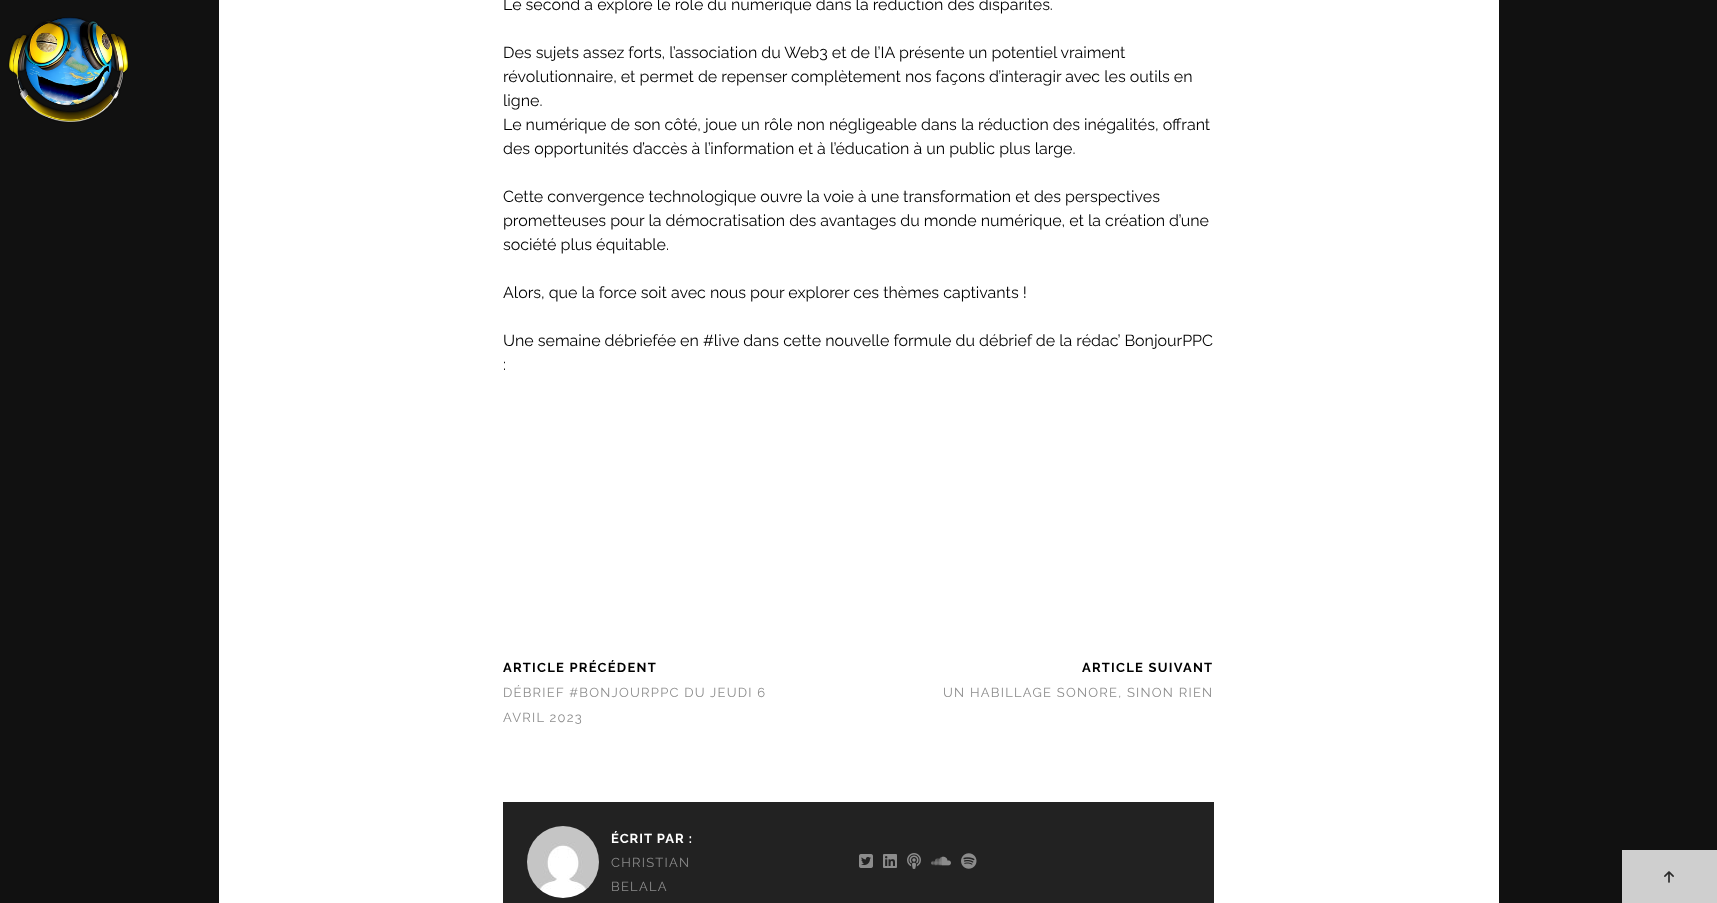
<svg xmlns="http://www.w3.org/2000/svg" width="1717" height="903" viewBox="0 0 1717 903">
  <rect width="100%" height="100%" fill="#111111"/>
  <image x="8" y="17" width="121" height="106" href="img1.png"/>
  <rect x="219" y="0" width="1280" height="903" fill="#ffffff"/>
  <text x="503" y="10" font-family="Raleway" font-size="16" fill="#000000">Le second a exploré le rôle du numérique dans la réduction des disparités.</text>
  <text x="503" y="58" font-family="Raleway" font-size="16" fill="#000000">Des sujets assez forts, l’association du Web3 et de l’IA présente un potentiel vraiment</text>
  <text x="503" y="82" font-family="Raleway" font-size="16" fill="#000000">révolutionnaire, et permet de repenser complètement nos façons d’interagir avec les outils en</text>
  <text x="503" y="106" font-family="Raleway" font-size="16" fill="#000000">ligne.</text>
  <text x="503" y="130" font-family="Raleway" font-size="16" fill="#000000">Le numérique de son côté, joue un rôle non négligeable dans la réduction des inégalités, offrant</text>
  <text x="503" y="154" font-family="Raleway" font-size="16" fill="#000000">des opportunités d’accès à l’information et à l’éducation à un public plus large.</text>
  <text x="503" y="202" font-family="Raleway" font-size="16" fill="#000000">Cette convergence technologique ouvre la voie à une transformation et des perspectives</text>
  <text x="503" y="226" font-family="Raleway" font-size="16" fill="#000000">prometteuses pour la démocratisation des avantages du monde numérique, et la création d’une</text>
  <text x="503" y="250" font-family="Raleway" font-size="16" fill="#000000">société plus équitable.</text>
  <text x="503" y="298" font-family="Raleway" font-size="16" fill="#000000">Alors, que la force soit avec nous pour explorer ces thèmes captivants !</text>
  <text x="503" y="346" font-family="Raleway" font-size="16" fill="#000000">Une semaine débriefée en #live dans cette nouvelle formule du débrief de la rédac’ BonjourPPC</text>
  <text x="503" y="370" font-family="Raleway" font-size="16" fill="#000000">:</text>
  <text x="503" y="672" font-family="Raleway" font-size="13" font-weight="bold" letter-spacing="1.25" fill="#000000">ARTICLE PRÉCÉDENT</text>
  <text x="503" y="697" font-family="Raleway" font-size="13" letter-spacing="1.25" fill="#8c8c8c">DÉBRIEF #BONJOURPPC DU JEUDI 6</text>
  <text x="503" y="722" font-family="Raleway" font-size="13" letter-spacing="1.25" fill="#8c8c8c">AVRIL 2023</text>
  <text x="1082" y="672" font-family="Raleway" font-size="13" font-weight="bold" letter-spacing="1.25" fill="#000000">ARTICLE SUIVANT</text>
  <text x="943" y="697" font-family="Raleway" font-size="13" letter-spacing="1.25" fill="#8c8c8c">UN HABILLAGE SONORE, SINON RIEN</text>
  <rect x="503" y="802" width="711" height="101" fill="#222222"/>
  <image x="527" y="826" width="72" height="72" href="img2.png"/>
  <text x="611" y="843" font-family="Raleway" font-size="13" font-weight="bold" letter-spacing="1" fill="#ffffff">ÉCRIT PAR :</text>
  <text x="611" y="867" font-family="Raleway" font-size="13" letter-spacing="1.25" fill="#8c8c8c">CHRISTIAN</text>
  <text x="611" y="891" font-family="Raleway" font-size="13" letter-spacing="1.25" fill="#8c8c8c">BELALA</text>
  <image x="859" y="854" width="14" height="14" href="img3.png"/>
  <image x="883" y="854" width="14" height="14" href="img4.png"/>
  <image x="907" y="853" width="14" height="16" href="img5.png"/>
  <image x="931" y="856" width="20" height="10" href="img6.png"/>
  <image x="961" y="853" width="16" height="16" href="img7.png"/>
  <rect x="1622" y="850" width="95" height="53" fill="#cfcfcf"/>
  <image x="1664" y="871" width="10" height="12" href="img8.png"/>
</svg>
